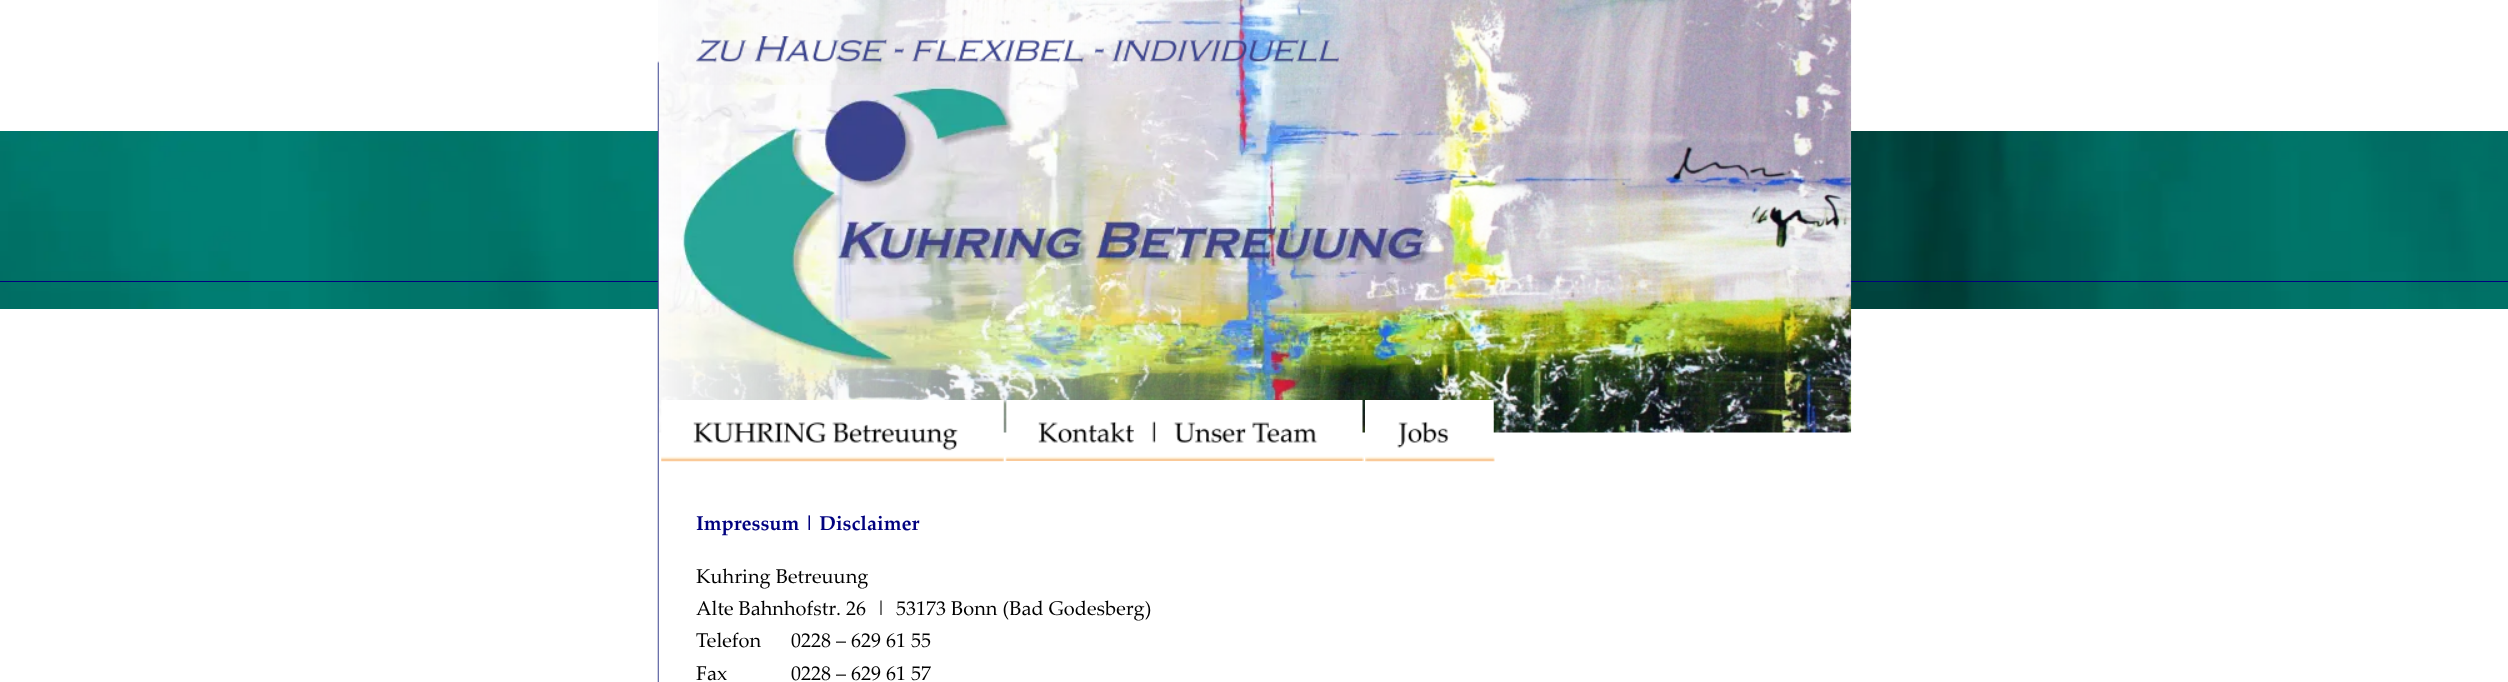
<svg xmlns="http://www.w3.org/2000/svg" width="2508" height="682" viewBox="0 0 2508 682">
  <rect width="100%" height="100%" fill="#ffffff"/>
  <image x="0" y="131" width="2508" height="178" href="img1.png"/>
  <rect x="0" y="281" width="2508" height="1" fill="#00017f"/>
  <rect x="658" y="131" width="1193" height="178" fill="#ffffff"/>
  <image x="658" y="0" width="1194" height="433" href="img5.png"/>
  <image x="661" y="400" width="343" height="62" href="img2.png"/>
  <image x="1005" y="400" width="359" height="61" href="img3.png"/>
  <image x="1365" y="400" width="130" height="62" href="img4.png"/>
  <image x="696" y="36" width="643" height="27" href="img6.png"/>
  <image x="657" y="61" width="2" height="621" href="img7.png"/>
  <image x="681" y="85" width="758" height="288" href="img8.png"/>
  <text x="696" y="530" font-family="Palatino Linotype" font-size="20" font-weight="bold" fill="#00017f">Impressum | Disclaimer</text>
  <text x="696" y="583" font-family="Palatino Linotype" font-size="20" fill="#000000">Kuhring Betreuung</text>
  <text x="696" y="615" font-family="Palatino Linotype" font-size="20" fill="#000000" xml:space="preserve">Alte Bahnhofstr. 26  |  53173 Bonn (Bad Godesberg)</text>
  <text x="696" y="647" font-family="Palatino Linotype" font-size="20" fill="#000000">Telefon</text>
  <text x="791" y="647" font-family="Palatino Linotype" font-size="20" fill="#000000">0228 – 629 61 55</text>
  <text x="696" y="680" font-family="Palatino Linotype" font-size="20" fill="#000000">Fax</text>
  <text x="791" y="680" font-family="Palatino Linotype" font-size="20" fill="#000000">0228 – 629 61 57</text>
</svg>
